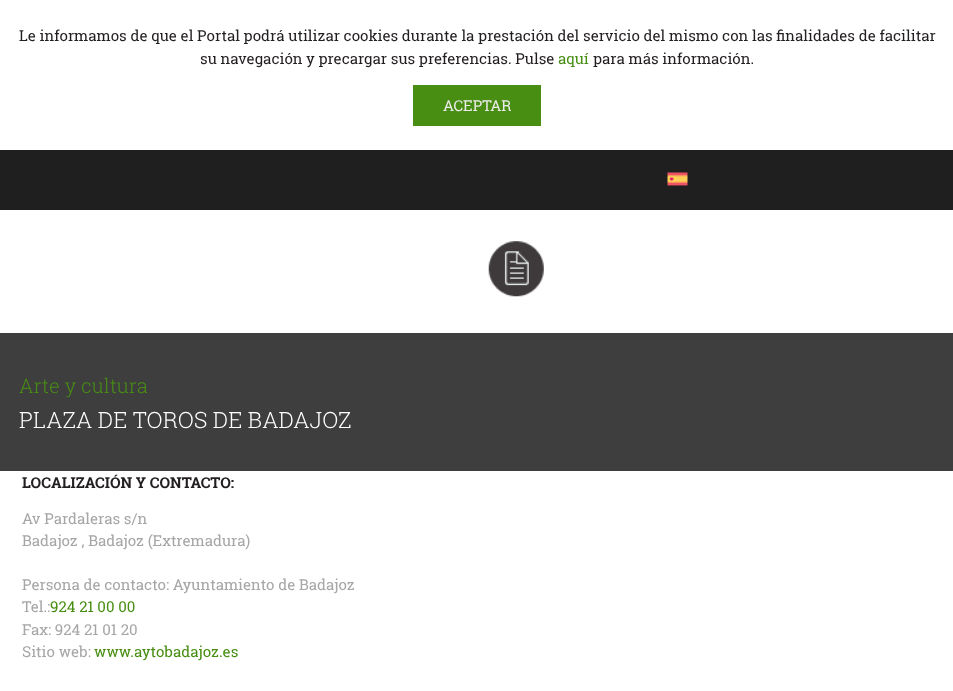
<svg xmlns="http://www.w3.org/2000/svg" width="953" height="691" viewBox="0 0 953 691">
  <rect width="100%" height="100%" fill="#ffffff"/>
  <text x="19" y="41" font-family="Roboto Slab" font-size="15" fill="#231f20">Le informamos de que el Portal podrá utilizar cookies durante la prestación del servicio del mismo con las finalidades de facilitar</text>
  <text x="200" y="64" font-family="Roboto Slab" font-size="15" fill="#231f20">su navegación y precargar sus preferencias. Pulse</text>
  <text x="558" y="64" font-family="Roboto Slab" font-size="15" fill="#488e13">aquí</text>
  <text x="593" y="64" font-family="Roboto Slab" font-size="15" fill="#231f20">para más información.</text>
  <rect x="413" y="85" width="128" height="41" fill="#488e13"/>
  <text x="443" y="111" font-family="Roboto Slab" font-size="15" fill="#ecebeb">ACEPTAR</text>
  <rect x="0" y="150" width="953" height="60" fill="#1f1f1f"/>
  <image x="667" y="172" width="21" height="14" href="img1.png"/>
  <image x="488" y="241" width="56" height="56" href="img2.png"/>
  <rect x="0" y="333" width="953" height="138" fill="#3e3e3e"/>
  <text x="19" y="393" font-family="Roboto Slab" font-size="20" font-weight="300" fill="#488e13">Arte y cultura</text>
  <text x="19" y="428" font-family="Roboto Slab" font-size="22.5" font-weight="300" fill="#ffffff">PLAZA DE TOROS DE BADAJOZ</text>
  <text x="22" y="488" font-family="Roboto Slab" font-size="15" font-weight="bold" fill="#231f20">LOCALIZACIÓN Y CONTACTO:</text>
  <text x="22" y="524" font-family="Roboto Slab" font-size="15" fill="#a7a5a5">Av Pardaleras s/n</text>
  <text x="22" y="546" font-family="Roboto Slab" font-size="15" fill="#a7a5a5">Badajoz , Badajoz (Extremadura)</text>
  <text x="22" y="590" font-family="Roboto Slab" font-size="15" fill="#a7a5a5">Persona de contacto: Ayuntamiento de Badajoz</text>
  <text x="22" y="612" font-family="Roboto Slab" font-size="15" fill="#a7a5a5">Tel.:</text>
  <text x="50" y="612" font-family="Roboto Slab" font-size="15" fill="#488e13">924 21 00 00</text>
  <text x="22" y="635" font-family="Roboto Slab" font-size="15" fill="#a7a5a5">Fax: 924 21 01 20</text>
  <text x="22" y="657" font-family="Roboto Slab" font-size="15" fill="#a7a5a5">Sitio web:</text>
  <text x="94" y="657" font-family="Roboto Slab" font-size="15" fill="#488e13">www.aytobadajoz.es</text>
</svg>
